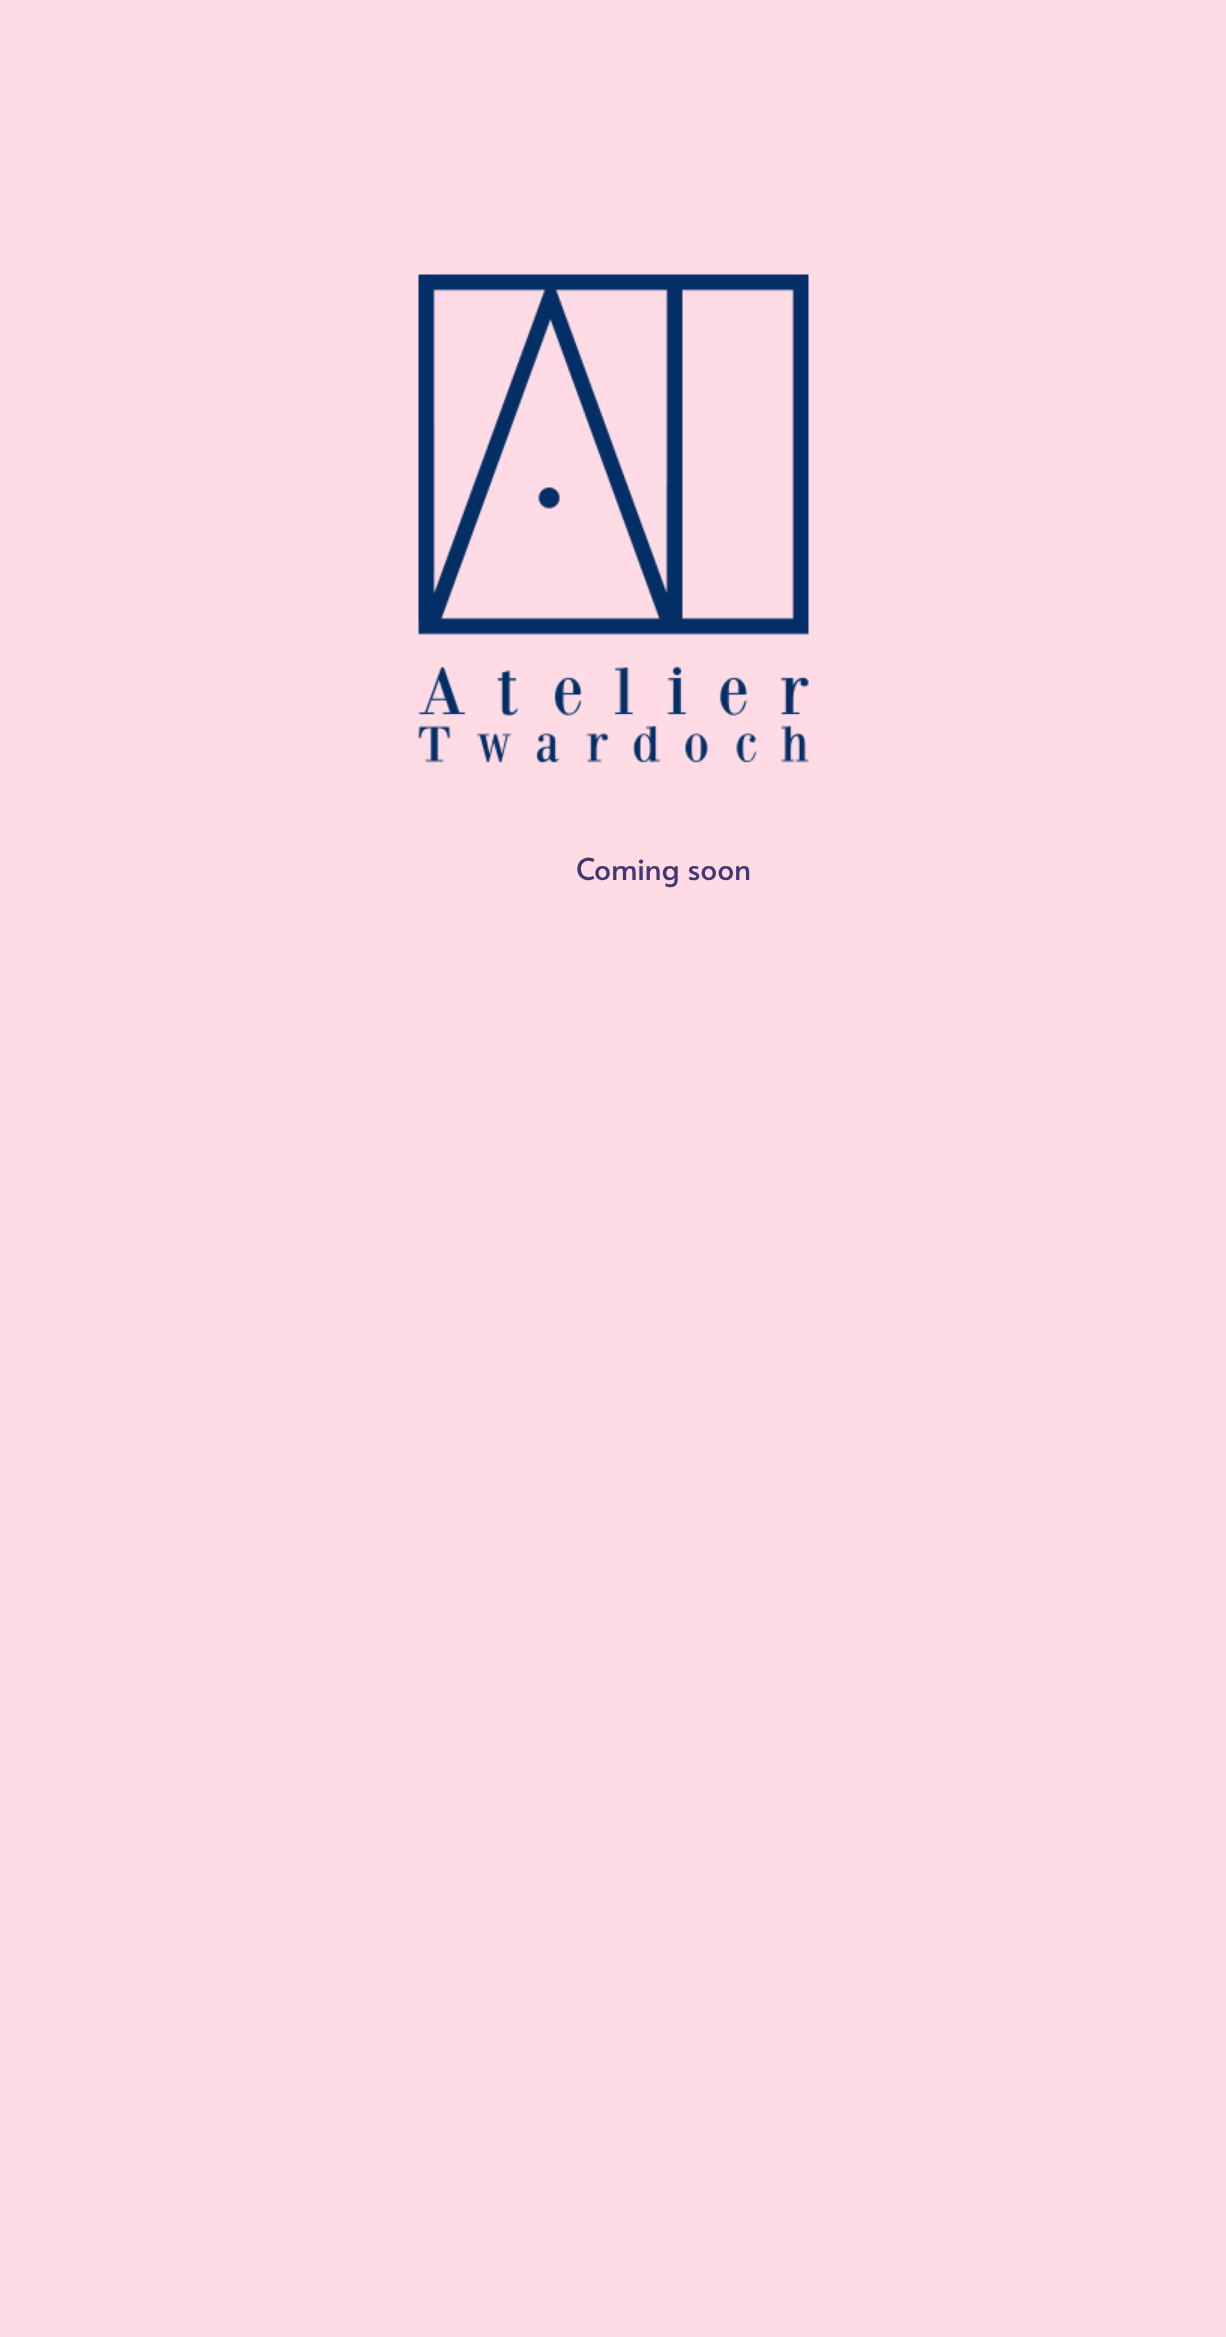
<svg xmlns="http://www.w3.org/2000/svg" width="1226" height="2337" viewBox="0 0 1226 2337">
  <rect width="100%" height="100%" fill="#ffdce5"/>
  <image x="418" y="274" width="391" height="489" href="img1.png"/>
  <text x="576" y="880" font-family="Alata" font-size="30" fill="#3f3875">Coming soon</text>
</svg>
